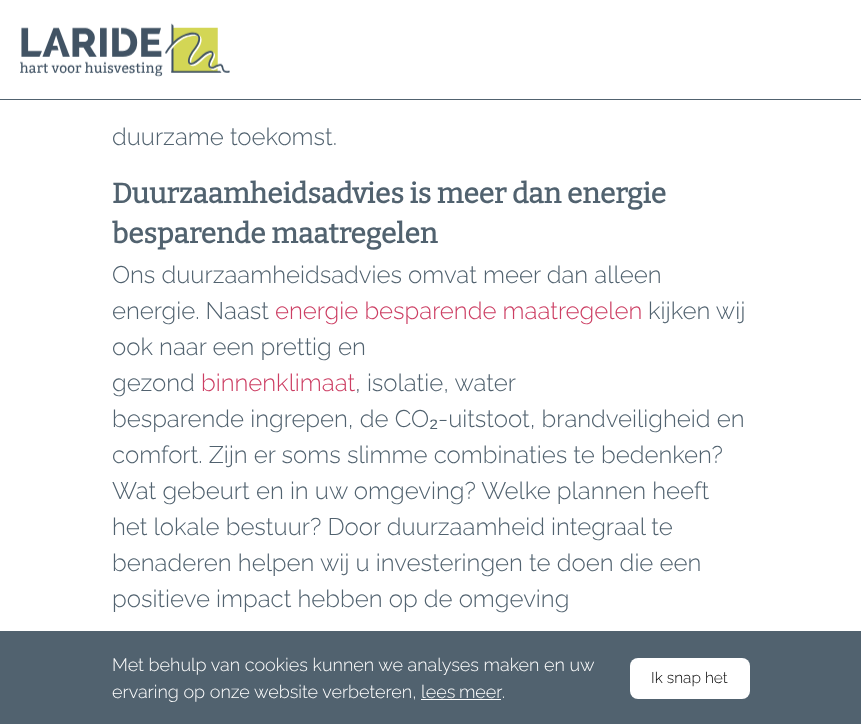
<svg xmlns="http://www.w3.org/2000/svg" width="861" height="724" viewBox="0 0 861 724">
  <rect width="100%" height="100%" fill="#ffffff"/>
  <rect x="0" y="99" width="861" height="1" fill="#51626f"/>
  <image x="20" y="23" width="210" height="54" href="img1.png"/>
  <text x="112" y="145" font-family="Raleway" font-size="24" font-weight="300" fill="#51626f">duurzame toekomst.</text>
  <text x="112" y="203" font-family="Bitter" font-size="28" font-weight="bold" fill="#51626f">Duurzaamheidsadvies is meer dan energie</text>
  <text x="112" y="243" font-family="Bitter" font-size="28" font-weight="bold" fill="#51626f">besparende maatregelen</text>
  <text x="112" y="283" font-family="Raleway" font-size="24" font-weight="300" fill="#51626f">Ons duurzaamheidsadvies omvat meer dan alleen</text>
  <text x="112" y="319" font-family="Raleway" font-size="24" font-weight="300" fill="#51626f">energie. Naast</text>
  <text x="275" y="319" font-family="Raleway" font-size="24" font-weight="300" fill="#cc3e63">energie besparende maatregelen</text>
  <text x="648" y="319" font-family="Raleway" font-size="24" font-weight="300" fill="#51626f">kijken wij</text>
  <text x="112" y="355" font-family="Raleway" font-size="24" font-weight="300" fill="#51626f">ook naar een prettig en</text>
  <text x="112" y="391" font-family="Raleway" font-size="24" font-weight="300" fill="#51626f">gezond</text>
  <text x="201" y="391" font-family="Raleway" font-size="24" font-weight="300" fill="#cc3e63">binnenklimaat</text>
  <text x="355" y="391" font-family="Raleway" font-size="24" font-weight="300" fill="#51626f">, isolatie, water</text>
  <text x="112" y="427" font-family="Raleway" font-size="24" font-weight="300" fill="#51626f">besparende ingrepen, de CO</text>
  <text x="429" y="427" font-family="Liberation Sans" font-size="24" fill="#51626f">₂</text>
  <text x="438" y="427" font-family="Raleway" font-size="24" font-weight="300" fill="#51626f">-uitstoot, brandveiligheid en</text>
  <text x="112" y="463" font-family="Raleway" font-size="24" font-weight="300" fill="#51626f">comfort. Zijn er soms slimme combinaties te bedenken?</text>
  <text x="112" y="499" font-family="Raleway" font-size="24" font-weight="300" fill="#51626f">Wat gebeurt en in uw omgeving? Welke plannen heeft</text>
  <text x="112" y="535" font-family="Raleway" font-size="24" font-weight="300" fill="#51626f">het lokale bestuur? Door duurzaamheid integraal te</text>
  <text x="112" y="571" font-family="Raleway" font-size="24" font-weight="300" fill="#51626f">benaderen helpen wij u investeringen te doen die een</text>
  <text x="112" y="607" font-family="Raleway" font-size="24" font-weight="300" fill="#51626f">positieve impact hebben op de omgeving</text>
  <rect x="0" y="631" width="861" height="93" fill="#51626f"/>
  <text x="112" y="671" font-family="Raleway" font-size="18" font-weight="300" fill="#ffffff">Met behulp van cookies kunnen we analyses maken en uw</text>
  <rect x="630" y="658" width="120" height="41" rx="8" fill="#ffffff"/>
  <text x="651" y="683" font-family="Raleway" font-size="15.5" font-weight="300" fill="#000000">Ik snap het</text>
  <text x="112" y="698" font-family="Raleway" font-size="18" font-weight="300" fill="#ffffff">ervaring op onze website verbeteren,</text>
  <text x="421" y="698" word-spacing="-1" font-family="Raleway" font-size="18" font-weight="300" fill="#ffffff">lees meer</text>
  <rect x="421" y="699" width="80" height="1" fill="#ffffff"/>
  <text x="502" y="698" font-family="Raleway" font-size="18" font-weight="300" fill="#ffffff">.</text>
</svg>
